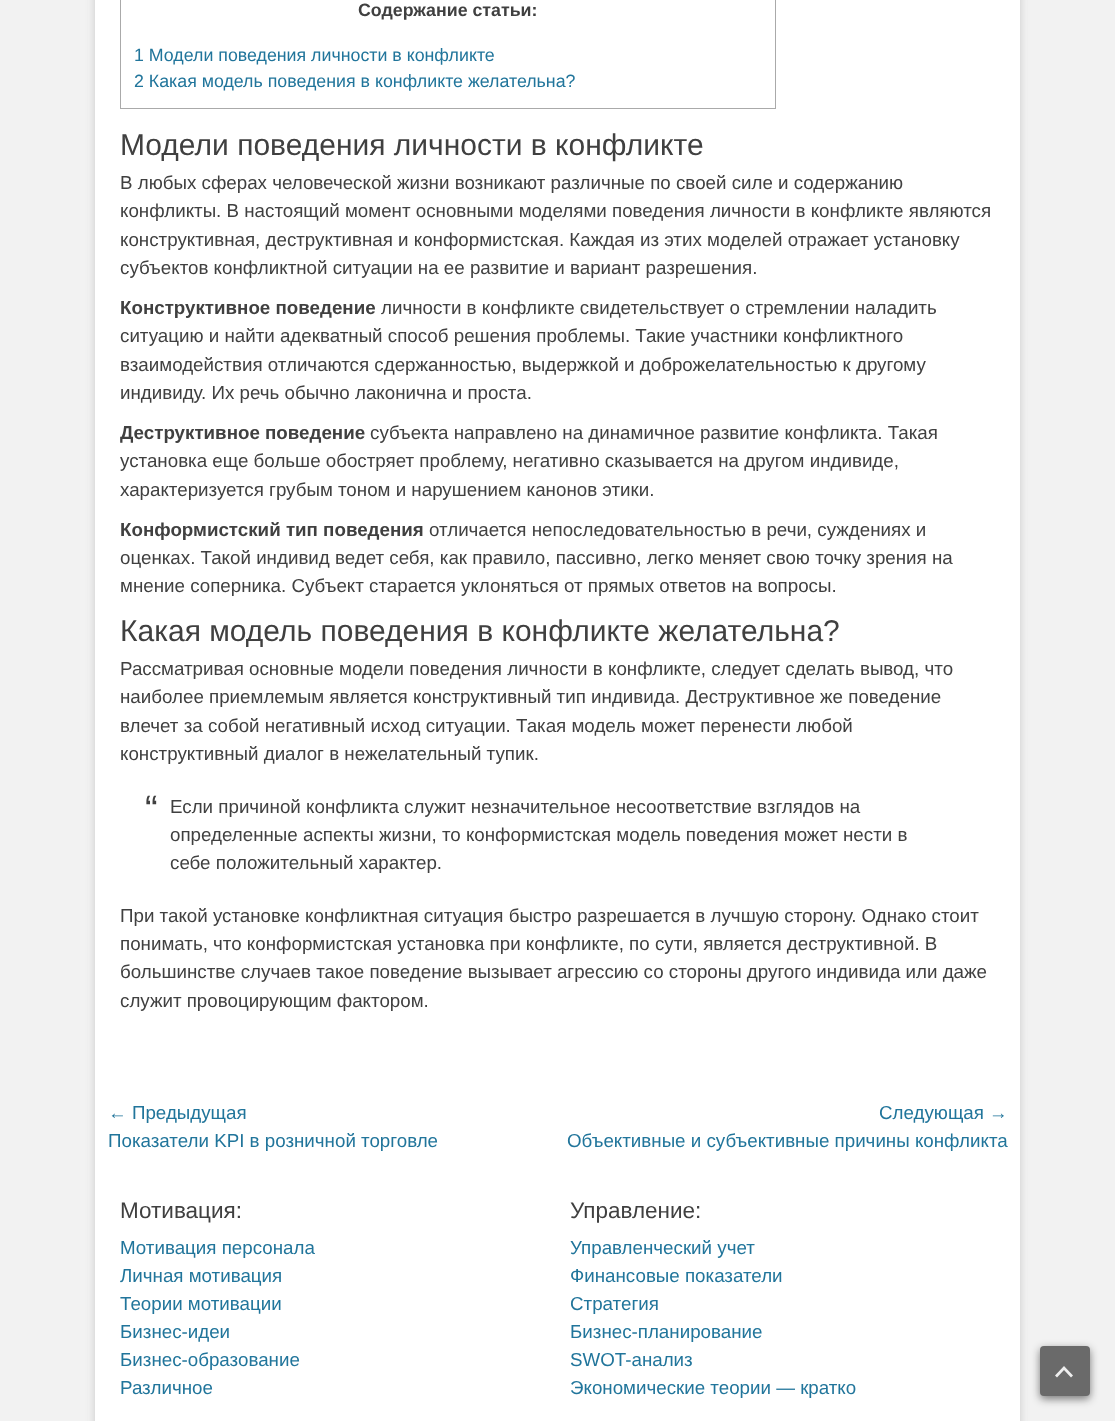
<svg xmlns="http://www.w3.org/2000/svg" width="1115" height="1421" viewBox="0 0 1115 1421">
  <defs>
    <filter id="blur1" x="-50%" y="-200%" width="200%" height="500%"><feGaussianBlur stdDeviation="4"/></filter>
  </defs>
  <rect width="100%" height="100%" fill="#f2f2f2"/>
  <rect x="95" y="-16" width="925" height="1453" rx="4" fill="#646464" fill-opacity="0.3" filter="url(#blur1)"/>
  <rect x="95" y="0" width="925" height="1421" fill="#ffffff"/>
  <rect x="120.5" y="-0.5" width="655" height="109" fill="none" stroke="#aaaaaa"/>
  <text x="358" y="16" font-family="Liberation Sans" font-size="17.8" font-weight="bold" fill="#404040">Содержание статьи:</text>
  <text x="134" y="61" font-family="Liberation Sans" font-size="17.8" fill="#21759b">1 Модели поведения личности в конфликте</text>
  <text x="134" y="87" font-family="Liberation Sans" font-size="17.8" fill="#21759b">2 Какая модель поведения в конфликте желательна?</text>
  <text x="120" y="155" font-family="Liberation Sans" font-size="30" fill="#404040">Модели поведения личности в конфликте</text>
  <text x="120" y="189" font-family="Liberation Sans" font-size="18.75" fill="#404040">В любых сферах человеческой жизни возникают различные по своей силе и содержанию</text>
  <text x="120" y="217" font-family="Liberation Sans" font-size="18.75" fill="#404040">конфликты. В настоящий момент основными моделями поведения личности в конфликте являются</text>
  <text x="120" y="246" font-family="Liberation Sans" font-size="18.75" fill="#404040">конструктивная, деструктивная и конформистская. Каждая из этих моделей отражает установку</text>
  <text x="120" y="274" font-family="Liberation Sans" font-size="18.75" fill="#404040">субъектов конфликтной ситуации на ее развитие и вариант разрешения.</text>
  <text x="120" y="314" font-family="Liberation Sans" font-size="18.75" font-weight="bold" fill="#404040">Конструктивное поведение</text>
  <text x="381" y="314" font-family="Liberation Sans" font-size="18.75" fill="#404040">личности в конфликте свидетельствует о стремлении наладить</text>
  <text x="120" y="342" font-family="Liberation Sans" font-size="18.75" fill="#404040">ситуацию и найти адекватный способ решения проблемы. Такие участники конфликтного</text>
  <text x="120" y="371" font-family="Liberation Sans" font-size="18.75" fill="#404040">взаимодействия отличаются сдержанностью, выдержкой и доброжелательностью к другому</text>
  <text x="120" y="399" font-family="Liberation Sans" font-size="18.75" fill="#404040">индивиду. Их речь обычно лаконична и проста.</text>
  <text x="120" y="439" font-family="Liberation Sans" font-size="18.75" font-weight="bold" fill="#404040">Деструктивное поведение</text>
  <text x="370" y="439" font-family="Liberation Sans" font-size="18.75" fill="#404040">субъекта направлено на динамичное развитие конфликта. Такая</text>
  <text x="120" y="467" font-family="Liberation Sans" font-size="18.75" fill="#404040">установка еще больше обостряет проблему, негативно сказывается на другом индивиде,</text>
  <text x="120" y="496" font-family="Liberation Sans" font-size="18.75" fill="#404040">характеризуется грубым тоном и нарушением канонов этики.</text>
  <text x="120" y="536" font-family="Liberation Sans" font-size="18.75" font-weight="bold" fill="#404040">Конформистский тип поведения</text>
  <text x="429" y="536" font-family="Liberation Sans" font-size="18.75" fill="#404040">отличается непоследовательностью в речи, суждениях и</text>
  <text x="120" y="564" font-family="Liberation Sans" font-size="18.75" fill="#404040">оценках. Такой индивид ведет себя, как правило, пассивно, легко меняет свою точку зрения на</text>
  <text x="120" y="592" font-family="Liberation Sans" font-size="18.75" fill="#404040">мнение соперника. Субъект старается уклоняться от прямых ответов на вопросы.</text>
  <text x="120" y="641" font-family="Liberation Sans" font-size="30" fill="#404040">Какая модель поведения в конфликте желательна?</text>
  <text x="120" y="675" font-family="Liberation Sans" font-size="18.75" fill="#404040">Рассматривая основные модели поведения личности в конфликте, следует сделать вывод, что</text>
  <text x="120" y="703" font-family="Liberation Sans" font-size="18.75" fill="#404040">наиболее приемлемым является конструктивный тип индивида. Деструктивное же поведение</text>
  <text x="120" y="732" font-family="Liberation Sans" font-size="18.75" fill="#404040">влечет за собой негативный исход ситуации. Такая модель может перенести любой</text>
  <text x="120" y="760" font-family="Liberation Sans" font-size="18.75" fill="#404040">конструктивный диалог в нежелательный тупик.</text>
  <text x="145" y="822" font-family="Liberation Sans" font-size="38" fill="#404040">“</text>
  <text x="170" y="813" font-family="Liberation Sans" font-size="18.75" fill="#404040">Если причиной конфликта служит незначительное несоответствие взглядов на</text>
  <text x="170" y="841" font-family="Liberation Sans" font-size="18.75" fill="#404040">определенные аспекты жизни, то конформистская модель поведения может нести в</text>
  <text x="170" y="869" font-family="Liberation Sans" font-size="18.75" fill="#404040">себе положительный характер.</text>
  <text x="120" y="922" font-family="Liberation Sans" font-size="18.75" fill="#404040">При такой установке конфликтная ситуация быстро разрешается в лучшую сторону. Однако стоит</text>
  <text x="120" y="950" font-family="Liberation Sans" font-size="18.75" fill="#404040">понимать, что конформистская установка при конфликте, по сути, является деструктивной. В</text>
  <text x="120" y="978" font-family="Liberation Sans" font-size="18.75" fill="#404040">большинстве случаев такое поведение вызывает агрессию со стороны другого индивида или даже</text>
  <text x="120" y="1007" font-family="Liberation Sans" font-size="18.75" fill="#404040">служит провоцирующим фактором.</text>
  <text x="108" y="1119" font-family="Liberation Sans" font-size="18.75" fill="#21759b">← Предыдущая</text>
  <text x="108" y="1147" font-family="Liberation Sans" font-size="18.75" fill="#21759b">Показатели KPI в розничной торговле</text>
  <text x="879" y="1119" font-family="Liberation Sans" font-size="18.75" fill="#21759b">Следующая →</text>
  <text x="567" y="1147" font-family="Liberation Sans" font-size="18.75" fill="#21759b">Объективные и субъективные причины конфликта</text>
  <text x="120" y="1218" font-family="Liberation Sans" font-size="22.5" fill="#404040">Мотивация:</text>
  <text x="120" y="1254" font-family="Liberation Sans" font-size="18.75" fill="#21759b">Мотивация персонала</text>
  <text x="120" y="1282" font-family="Liberation Sans" font-size="18.75" fill="#21759b">Личная мотивация</text>
  <text x="120" y="1310" font-family="Liberation Sans" font-size="18.75" fill="#21759b">Теории мотивации</text>
  <text x="120" y="1338" font-family="Liberation Sans" font-size="18.75" fill="#21759b">Бизнес-идеи</text>
  <text x="120" y="1366" font-family="Liberation Sans" font-size="18.75" fill="#21759b">Бизнес-образование</text>
  <text x="120" y="1394" font-family="Liberation Sans" font-size="18.75" fill="#21759b">Различное</text>
  <text x="570" y="1218" font-family="Liberation Sans" font-size="22.5" fill="#404040">Управление:</text>
  <text x="570" y="1254" font-family="Liberation Sans" font-size="18.75" fill="#21759b">Управленческий учет</text>
  <text x="570" y="1282" font-family="Liberation Sans" font-size="18.75" fill="#21759b">Финансовые показатели</text>
  <text x="570" y="1310" font-family="Liberation Sans" font-size="18.75" fill="#21759b">Стратегия</text>
  <text x="570" y="1338" font-family="Liberation Sans" font-size="18.75" fill="#21759b">Бизнес-планирование</text>
  <text x="570" y="1366" font-family="Liberation Sans" font-size="18.75" fill="#21759b">SWOT-анализ</text>
  <text x="570" y="1394" font-family="Liberation Sans" font-size="18.75" fill="#21759b">Экономические теории — кратко</text>
  <rect x="1040" y="1349" width="50" height="50" rx="4" fill="#070707" fill-opacity="0.5" filter="url(#blur1)"/>
  <rect x="1040" y="1346" width="50" height="50" rx="4" fill="#6a6a6a"/>
  <path d="M1071 1377.5L1064 1370L1057 1377.5L1055 1375.5L1064 1366L1073 1375.5Z" fill="#eeeeee"/>
</svg>
